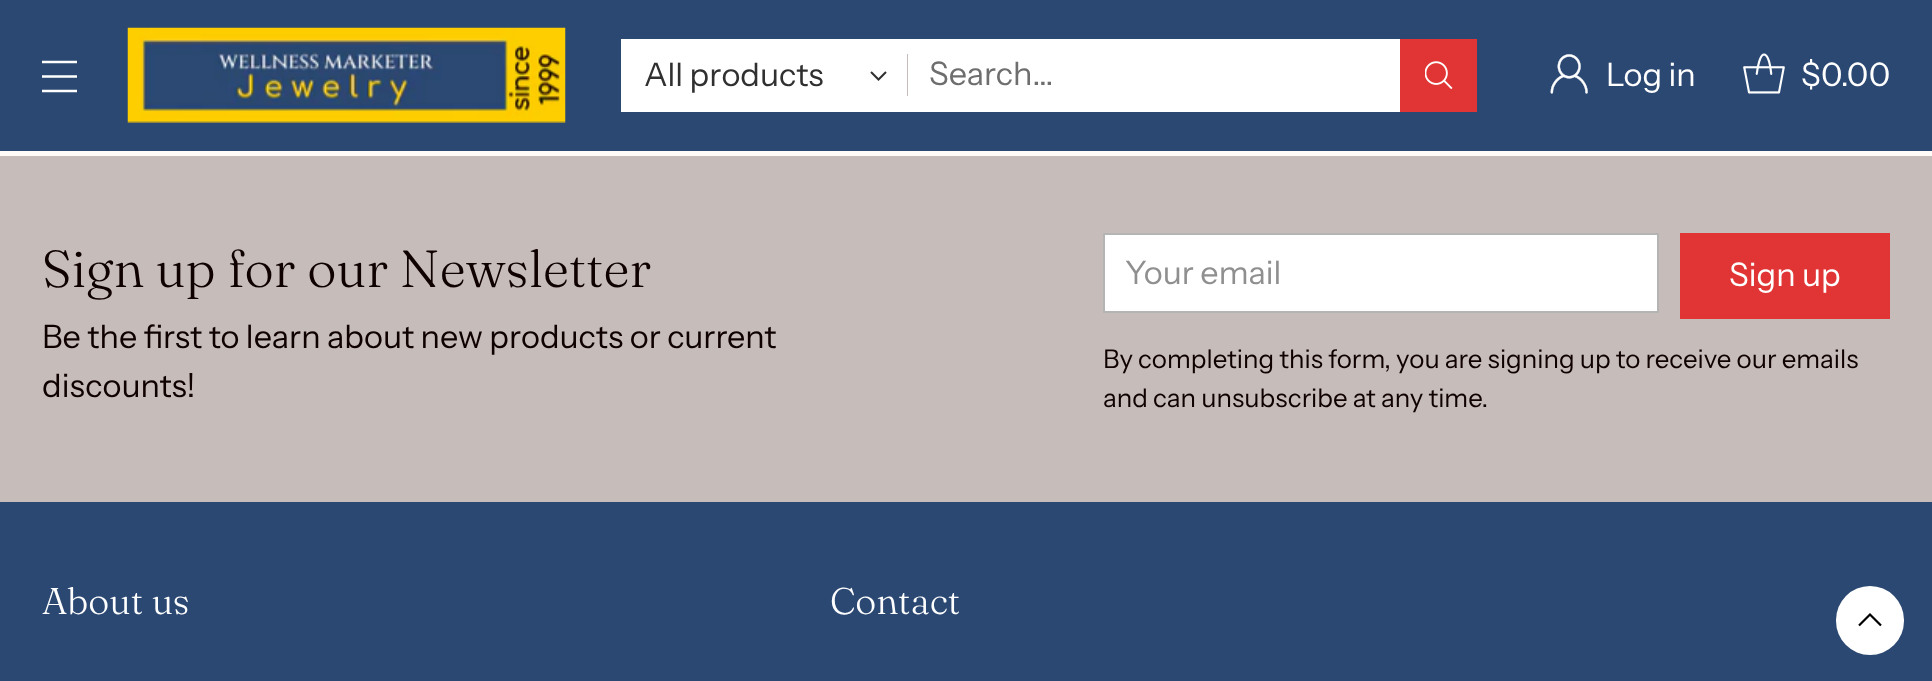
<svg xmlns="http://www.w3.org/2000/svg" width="1932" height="681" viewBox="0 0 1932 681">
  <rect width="100%" height="100%" fill="#fffbf9"/>
  <rect x="0" y="0" width="1932" height="151" fill="#2b4872"/>
  <path d="M42 76.5H77M42 62H77M42 91H77" fill="none" stroke="#ffffff" stroke-width="2.5"/>
  <image x="127" y="27" width="439" height="96" href="img1.png"/>
  <rect x="622" y="40" width="854" height="71" fill="none" stroke="#ffffff" stroke-width="2"/>
  <rect x="623" y="41" width="777" height="69" fill="#ffffff"/>
  <text x="644" y="86" font-family="Instrument Sans" font-size="32.4" fill="#303030">All products</text>
  <path d="M871 72L878.5 79.5L886 72" fill="none" stroke="#303030" stroke-width="2"/>
  <rect x="907" y="54" width="1" height="42" fill="#c6bcb9"/>
  <text x="929" y="85" font-family="Instrument Sans" font-size="32.4" fill="#6e6e6e">Search…</text>
  <rect x="1400" y="39" width="77" height="73" fill="#e13535"/>
  <image x="1425" y="61" width="28" height="28" href="img2.png"/>
  <image x="1550" y="54" width="38" height="40" href="img3.png"/>
  <text x="1606" y="86" font-family="Instrument Sans" font-size="32.4" fill="#ffffff">Log in</text>
  <image x="1743" y="53" width="42" height="41" href="img4.png"/>
  <text x="1801" y="86" font-family="Instrument Sans" font-size="32.4" fill="#ffffff">$0.00</text>
  <rect x="0" y="156" width="1932" height="346" fill="#c6bcb9"/>
  <text x="42" y="287" font-family="Fraunces" font-size="52" font-weight="300" fill="#100101">Sign up for our Newsletter</text>
  <text x="42" y="348" font-family="Instrument Sans" font-size="32.4" fill="#100101">Be the first to learn about new products or current</text>
  <text x="42" y="397" font-family="Instrument Sans" font-size="32.4" fill="#100101">discounts!</text>
  <rect x="1104" y="234" width="554" height="78" fill="#ffffff" stroke="#b4b4b4" stroke-width="2"/>
  <text x="1125" y="284" font-family="Instrument Sans" font-size="32.4" fill="#8f8f8f">Your email</text>
  <rect x="1680" y="233" width="210" height="86" fill="#e13535"/>
  <text x="1729" y="286" font-family="Instrument Sans" font-size="32.4" fill="#ffffff">Sign up</text>
  <text x="1103" y="368" font-family="Instrument Sans" font-size="25.85" fill="#100101">By completing this form, you are signing up to receive our emails</text>
  <text x="1103" y="407" font-family="Instrument Sans" font-size="25.85" fill="#100101">and can unsubscribe at any time.</text>
  <rect x="0" y="502" width="1932" height="179" fill="#2b4872"/>
  <text x="42" y="614" font-family="'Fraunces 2'" font-size="37" font-weight="300" fill="#ffffff">About us</text>
  <text x="830" y="614" font-family="'Fraunces 2'" font-size="37" font-weight="300" fill="#ffffff">Contact</text>
  <rect x="1836" y="586" width="68" height="69" rx="34" fill="#ffffff"/>
  <path d="M1881 625.5L1870 614.5L1859 625.5" fill="none" stroke="#000000" stroke-width="2.2"/>
</svg>
